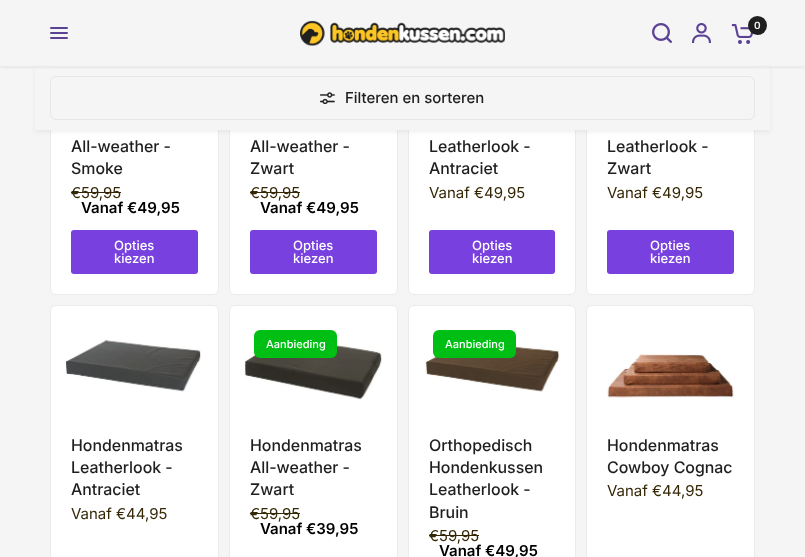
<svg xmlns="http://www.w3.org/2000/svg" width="805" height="557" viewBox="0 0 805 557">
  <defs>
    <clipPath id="clip1"><path d="M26 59H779V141H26ZM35 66H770V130H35Z" clip-rule="evenodd"/></clipPath>
    <filter id="blur1" x="-50%" y="-200%" width="200%" height="500%"><feGaussianBlur stdDeviation="2.5"/></filter>
    <clipPath id="clip2"><rect x="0" y="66" width="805" height="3"/></clipPath>
  </defs>
  <rect width="100%" height="100%" fill="#f5f5f5"/>
  <rect x="50.5" y="-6.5" width="168" height="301" rx="5.5" fill="#ffffff" stroke="#ebebed"/>
  <rect x="229.5" y="-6.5" width="168" height="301" rx="5.5" fill="#ffffff" stroke="#ebebed"/>
  <rect x="408.5" y="-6.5" width="167" height="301" rx="5.5" fill="#ffffff" stroke="#ebebed"/>
  <rect x="586.5" y="-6.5" width="168" height="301" rx="5.5" fill="#ffffff" stroke="#ebebed"/>
  <rect x="50" y="66" width="705" height="64" fill="#f5f5f5"/>
  <g clip-path="url(#clip1)">
    <rect x="35" y="68" width="735" height="64" fill="#000000" fill-opacity="0.06" filter="url(#blur1)"/>
  </g>
  <rect x="50" y="0" width="705" height="66" fill="#f5f5f5"/>
  <rect x="50.5" y="76.5" width="704" height="43" rx="5.5" fill="none" stroke="#e6e6e6"/>
  <g clip-path="url(#clip2)">
    <rect x="0" y="2" width="805" height="66" fill="#000000" fill-opacity="0.06" filter="url(#blur1)"/>
  </g>
  <image x="300" y="20" width="205" height="26" href="img1.png"/>
  <image x="652" y="23" width="20" height="20" href="img2.png"/>
  <image x="692" y="23" width="19" height="20" href="img3.png"/>
  <image x="731" y="24" width="22" height="20" href="img4.png"/>
  <circle cx="757.5" cy="25.5" r="9.5" fill="#1f1f1f"/>
  <text x="754" y="29" font-family="Inter" font-size="10" font-weight="600" fill="#f5f5f5">0</text>
  <rect x="50" y="27" width="18" height="2" rx="1" fill="#5c4295"/>
  <rect x="50" y="32" width="18" height="2" rx="1" fill="#5c4295"/>
  <rect x="50" y="37" width="18" height="2" rx="1" fill="#5c4295"/>
  <image x="320" y="92" width="15" height="12" href="img5.png"/>
  <text x="345" y="103" font-family="'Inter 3'" font-size="15" font-weight="500" fill="#1f1f1f">Filteren en sorteren</text>
  <text x="71" y="152" font-family="Inter" font-size="16" font-weight="500" fill="#1f1f1f">All-weather -</text>
  <text x="71" y="174" font-family="Inter" font-size="16" font-weight="500" fill="#1f1f1f">Smoke</text>
  <text x="71" y="198" font-family="Inter" font-size="15" fill="#352706">€59,95</text>
  <rect x="71" y="192" width="50" height="1" fill="#352706"/>
  <text x="81" y="213" font-family="Inter" font-size="15" font-weight="600" fill="#000000">Vanaf €49,95</text>
  <rect x="71" y="230" width="127" height="44" rx="3" fill="#7840de"/>
  <text x="114" y="250" font-family="'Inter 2'" font-size="13" font-weight="500" fill="#ffffff">Opties</text>
  <text x="114" y="263" font-family="'Inter 2'" font-size="13" font-weight="500" fill="#ffffff">kiezen</text>
  <text x="250" y="152" font-family="Inter" font-size="16" font-weight="500" fill="#1f1f1f">All-weather -</text>
  <text x="250" y="174" font-family="Inter" font-size="16" font-weight="500" fill="#1f1f1f">Zwart</text>
  <text x="250" y="198" font-family="Inter" font-size="15" fill="#352706">€59,95</text>
  <rect x="250" y="192" width="50" height="1" fill="#352706"/>
  <text x="260" y="213" font-family="Inter" font-size="15" font-weight="600" fill="#000000">Vanaf €49,95</text>
  <rect x="250" y="230" width="127" height="44" rx="3" fill="#7840de"/>
  <text x="293" y="250" font-family="'Inter 2'" font-size="13" font-weight="500" fill="#ffffff">Opties</text>
  <text x="293" y="263" font-family="'Inter 2'" font-size="13" font-weight="500" fill="#ffffff">kiezen</text>
  <text x="429" y="152" font-family="Inter" font-size="16" font-weight="500" fill="#1f1f1f">Leatherlook -</text>
  <text x="429" y="174" font-family="Inter" font-size="16" font-weight="500" fill="#1f1f1f">Antraciet</text>
  <text x="429" y="198" font-family="Inter" font-size="15" fill="#352706">Vanaf €49,95</text>
  <rect x="429" y="230" width="126" height="44" rx="3" fill="#7840de"/>
  <text x="472" y="250" font-family="'Inter 2'" font-size="13" font-weight="500" fill="#ffffff">Opties</text>
  <text x="472" y="263" font-family="'Inter 2'" font-size="13" font-weight="500" fill="#ffffff">kiezen</text>
  <text x="607" y="152" font-family="Inter" font-size="16" font-weight="500" fill="#1f1f1f">Leatherlook -</text>
  <text x="607" y="174" font-family="Inter" font-size="16" font-weight="500" fill="#1f1f1f">Zwart</text>
  <text x="607" y="198" font-family="Inter" font-size="15" fill="#352706">Vanaf €49,95</text>
  <rect x="607" y="230" width="127" height="44" rx="3" fill="#7840de"/>
  <text x="650" y="250" font-family="'Inter 2'" font-size="13" font-weight="500" fill="#ffffff">Opties</text>
  <text x="650" y="263" font-family="'Inter 2'" font-size="13" font-weight="500" fill="#ffffff">kiezen</text>
  <rect x="50.5" y="305.5" width="168" height="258" rx="5.5" fill="#ffffff" stroke="#ebebed"/>
  <image x="65" y="339" width="136" height="53" href="img6.png"/>
  <text x="71" y="451" font-family="Inter" font-size="16" font-weight="500" fill="#1f1f1f">Hondenmatras</text>
  <text x="71" y="473" font-family="Inter" font-size="16" font-weight="500" fill="#1f1f1f">Leatherlook -</text>
  <text x="71" y="495" font-family="Inter" font-size="16" font-weight="500" fill="#1f1f1f">Antraciet</text>
  <text x="71" y="519" font-family="Inter" font-size="15" fill="#352706">Vanaf €44,95</text>
  <rect x="229.5" y="305.5" width="168" height="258" rx="5.5" fill="#ffffff" stroke="#ebebed"/>
  <image x="244" y="336" width="138" height="64" href="img7.png"/>
  <rect x="254" y="330" width="83" height="28" rx="6" fill="#00bf14"/>
  <text x="266" y="348" font-family="'Inter 2'" font-size="11" font-weight="500" fill="#ffffff">Aanbieding</text>
  <text x="250" y="451" font-family="Inter" font-size="16" font-weight="500" fill="#1f1f1f">Hondenmatras</text>
  <text x="250" y="473" font-family="Inter" font-size="16" font-weight="500" fill="#1f1f1f">All-weather -</text>
  <text x="250" y="495" font-family="Inter" font-size="16" font-weight="500" fill="#1f1f1f">Zwart</text>
  <text x="250" y="519" font-family="Inter" font-size="15" fill="#352706">€59,95</text>
  <rect x="250" y="513" width="50" height="1" fill="#352706"/>
  <text x="260" y="534" font-family="Inter" font-size="15" font-weight="600" fill="#000000">Vanaf €39,95</text>
  <rect x="408.5" y="305.5" width="167" height="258" rx="5.5" fill="#ffffff" stroke="#ebebed"/>
  <image x="425" y="340" width="135" height="52" href="img8.png"/>
  <rect x="433" y="330" width="83" height="28" rx="6" fill="#00bf14"/>
  <text x="445" y="348" font-family="'Inter 2'" font-size="11" font-weight="500" fill="#ffffff">Aanbieding</text>
  <text x="429" y="451" font-family="Inter" font-size="16" font-weight="500" fill="#1f1f1f">Orthopedisch</text>
  <text x="429" y="473" font-family="Inter" font-size="16" font-weight="500" fill="#1f1f1f">Hondenkussen</text>
  <text x="429" y="495" font-family="Inter" font-size="16" font-weight="500" fill="#1f1f1f">Leatherlook -</text>
  <text x="429" y="518" font-family="Inter" font-size="16" font-weight="500" fill="#1f1f1f">Bruin</text>
  <text x="429" y="541" font-family="Inter" font-size="15" fill="#352706">€59,95</text>
  <rect x="429" y="535" width="50" height="1" fill="#352706"/>
  <text x="439" y="556" font-family="Inter" font-size="15" font-weight="600" fill="#000000">Vanaf €49,95</text>
  <rect x="586.5" y="305.5" width="168" height="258" rx="5.5" fill="#ffffff" stroke="#ebebed"/>
  <image x="607" y="354" width="127" height="44" href="img9.png"/>
  <text x="607" y="451" font-family="Inter" font-size="16" font-weight="500" fill="#1f1f1f">Hondenmatras</text>
  <text x="607" y="473" font-family="Inter" font-size="16" font-weight="500" fill="#1f1f1f">Cowboy Cognac</text>
  <text x="607" y="496" font-family="Inter" font-size="15" fill="#352706">Vanaf €44,95</text>
</svg>
